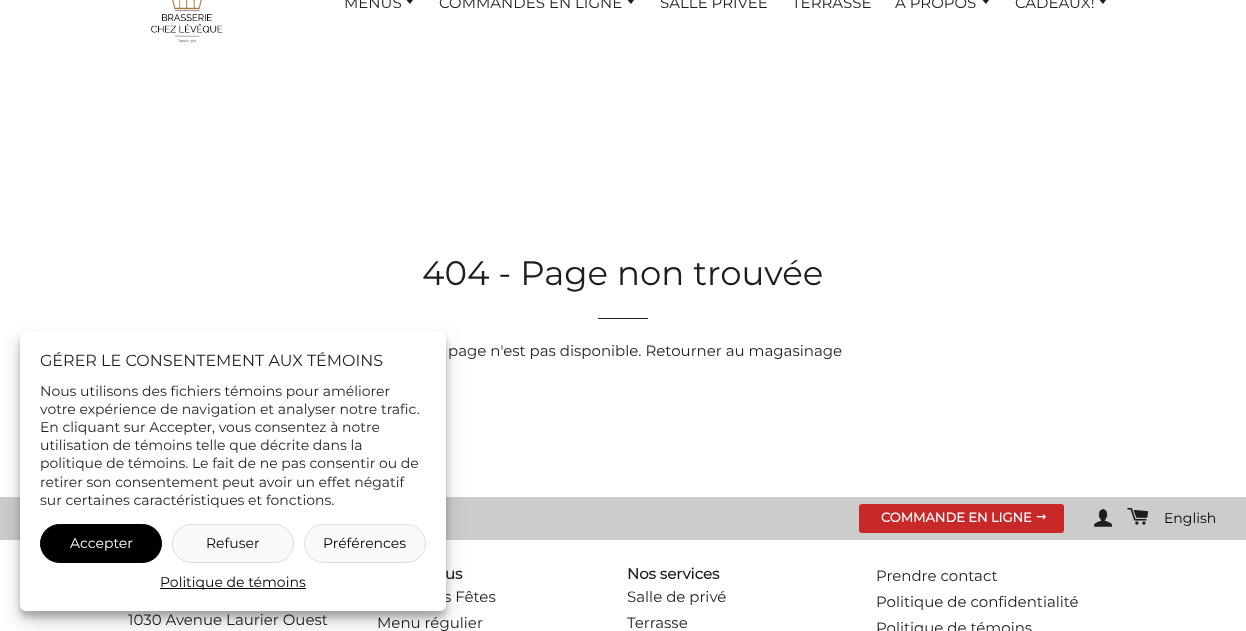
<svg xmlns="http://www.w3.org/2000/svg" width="1246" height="631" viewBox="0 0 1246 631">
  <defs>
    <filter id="blur1" x="-50%" y="-200%" width="200%" height="500%"><feGaussianBlur stdDeviation="3"/></filter>
    <filter id="blur2" x="-50%" y="-200%" width="200%" height="500%"><feGaussianBlur stdDeviation="10"/></filter>
  </defs>
  <rect width="100%" height="100%" fill="#ffffff"/>
  <image x="151" y="0" width="72" height="43" href="img1.png"/>
  <text x="344" y="8" font-family="Montserrat" font-size="15" font-weight="100" fill="#1c1d1d">MENUS</text>
  <path d="M406.5 0L410 4L413 0Z" fill="#1c1d1d"/>
  <text x="439" y="8" font-family="Montserrat" font-size="15" font-weight="100" fill="#1c1d1d">COMMANDES EN LIGNE</text>
  <path d="M627.5 0L631 4L634 0Z" fill="#1c1d1d"/>
  <text x="660" y="8" font-family="Montserrat" font-size="15" font-weight="100" fill="#1c1d1d">SALLE PRIVÉE</text>
  <text x="792" y="8" font-family="Montserrat" font-size="15" font-weight="100" fill="#1c1d1d">TERRASSE</text>
  <text x="895" y="8" font-family="Montserrat" font-size="15" font-weight="100" fill="#1c1d1d">À PROPOS</text>
  <path d="M982.5 0L986 4L989 0Z" fill="#1c1d1d"/>
  <text x="1015" y="8" font-family="Montserrat" font-size="15" font-weight="100" fill="#1c1d1d">CADEAUX!</text>
  <path d="M1099.5 0L1103 4L1106 0Z" fill="#1c1d1d"/>
  <text x="422" y="285" font-family="Montserrat" font-size="34" font-weight="100" fill="#1c1d1d">404 - Page non trouvée</text>
  <rect x="598" y="318" width="50" height="1" fill="#1c1d1d"/>
  <text x="448" y="356" font-family="Montserrat" font-size="15" font-weight="100" fill="#1c1d1d">page n'est pas disponible. Retourner au magasinage</text>
  <rect x="0" y="497" width="1246" height="43" fill="#cccccc"/>
  <rect x="859" y="504" width="205" height="29" rx="3" fill="#c82828"/>
  <text x="881" y="522" font-family="Montserrat" font-size="13" font-weight="bold" fill="#ffffff">COMMANDE EN LIGNE</text>
  <image x="1036" y="514" width="11" height="6" href="img2.png"/>
  <image x="1094" y="508" width="18" height="19" href="img3.png"/>
  <image x="1127" y="507" width="21" height="18" href="img4.png"/>
  <text x="1164" y="523" font-family="Montserrat" font-size="14" font-weight="100" fill="#000000">English</text>
  <text x="128" y="625" font-family="Montserrat" font-size="15" font-weight="100" fill="#1c1d1d">1030 Avenue Laurier Ouest</text>
  <text x="445" y="579" font-family="Montserrat" font-size="15" font-weight="bold" fill="#1c1d1d">us</text>
  <text x="444" y="602" font-family="Montserrat" font-size="15" font-weight="100" fill="#1c1d1d">s Fêtes</text>
  <text x="377" y="628" font-family="Montserrat" font-size="15" font-weight="100" fill="#1c1d1d">Menu régulier</text>
  <text x="627" y="579" font-family="Montserrat" font-size="15" font-weight="bold" fill="#1c1d1d">Nos services</text>
  <text x="627" y="602" font-family="Montserrat" font-size="15" font-weight="100" fill="#1c1d1d">Salle de privé</text>
  <text x="627" y="628" font-family="Montserrat" font-size="15" font-weight="100" fill="#1c1d1d">Terrasse</text>
  <text x="876" y="581" font-family="Montserrat" font-size="15" font-weight="100" fill="#1c1d1d">Prendre contact</text>
  <text x="876" y="607" font-family="Montserrat" font-size="15" font-weight="100" fill="#1c1d1d">Politique de confidentialité</text>
  <text x="876" y="633" font-family="Montserrat" font-size="15" font-weight="100" fill="#1c1d1d">Politique de témoins</text>
  <rect x="20" y="337" width="426" height="280" rx="6" fill="#000000" fill-opacity="0.23" filter="url(#blur1)"/>
  <rect x="20" y="341" width="426" height="280" rx="6" fill="#000000" fill-opacity="0.19" filter="url(#blur2)"/>
  <rect x="20" y="331" width="426" height="280" rx="6" fill="#ffffff"/>
  <text x="40" y="366" font-family="Montserrat" font-size="16" font-weight="100" fill="#1c1d1d">GÉRER LE CONSENTEMENT AUX TÉMOINS</text>
  <text x="40" y="396" font-family="Montserrat" font-size="14" font-weight="100" fill="#1c1d1d">Nous utilisons des fichiers témoins pour améliorer</text>
  <text x="40" y="414" font-family="Montserrat" font-size="14" font-weight="100" fill="#1c1d1d">votre expérience de navigation et analyser notre trafic.</text>
  <text x="40" y="432" font-family="Montserrat" font-size="14" font-weight="100" fill="#1c1d1d">En cliquant sur Accepter, vous consentez à notre</text>
  <text x="40" y="450" font-family="Montserrat" font-size="14" font-weight="100" fill="#1c1d1d">utilisation de témoins telle que décrite dans la</text>
  <text x="40" y="468" font-family="Montserrat" font-size="14" font-weight="100" fill="#1c1d1d">politique de témoins. Le fait de ne pas consentir ou de</text>
  <text x="40" y="487" font-family="Montserrat" font-size="14" font-weight="100" fill="#1c1d1d">retirer son consentement peut avoir un effet négatif</text>
  <text x="40" y="505" font-family="Montserrat" font-size="14" font-weight="100" fill="#1c1d1d">sur certaines caractéristiques et fonctions.</text>
  <rect x="40.5" y="524.5" width="121" height="38" rx="19" fill="#000000" stroke="#000000"/>
  <text x="70" y="548" font-family="Montserrat" font-size="14" font-weight="100" fill="#ffffff">Accepter</text>
  <rect x="172.5" y="524.5" width="121" height="38" rx="19" fill="#f9f9f9" stroke="#dddddd"/>
  <text x="206" y="548" font-family="Montserrat" font-size="14" font-weight="100" fill="#000000">Refuser</text>
  <rect x="304.5" y="524.5" width="121" height="38" rx="19" fill="#f9f9f9" stroke="#dddddd"/>
  <text x="323" y="548" font-family="Montserrat" font-size="14" font-weight="100" fill="#000000">Préférences</text>
  <rect x="160" y="588" width="146" height="1" fill="#000000"/>
  <text x="160" y="587" font-family="Montserrat" font-size="14" font-weight="100" fill="#000000">Politique de témoins</text>
</svg>
